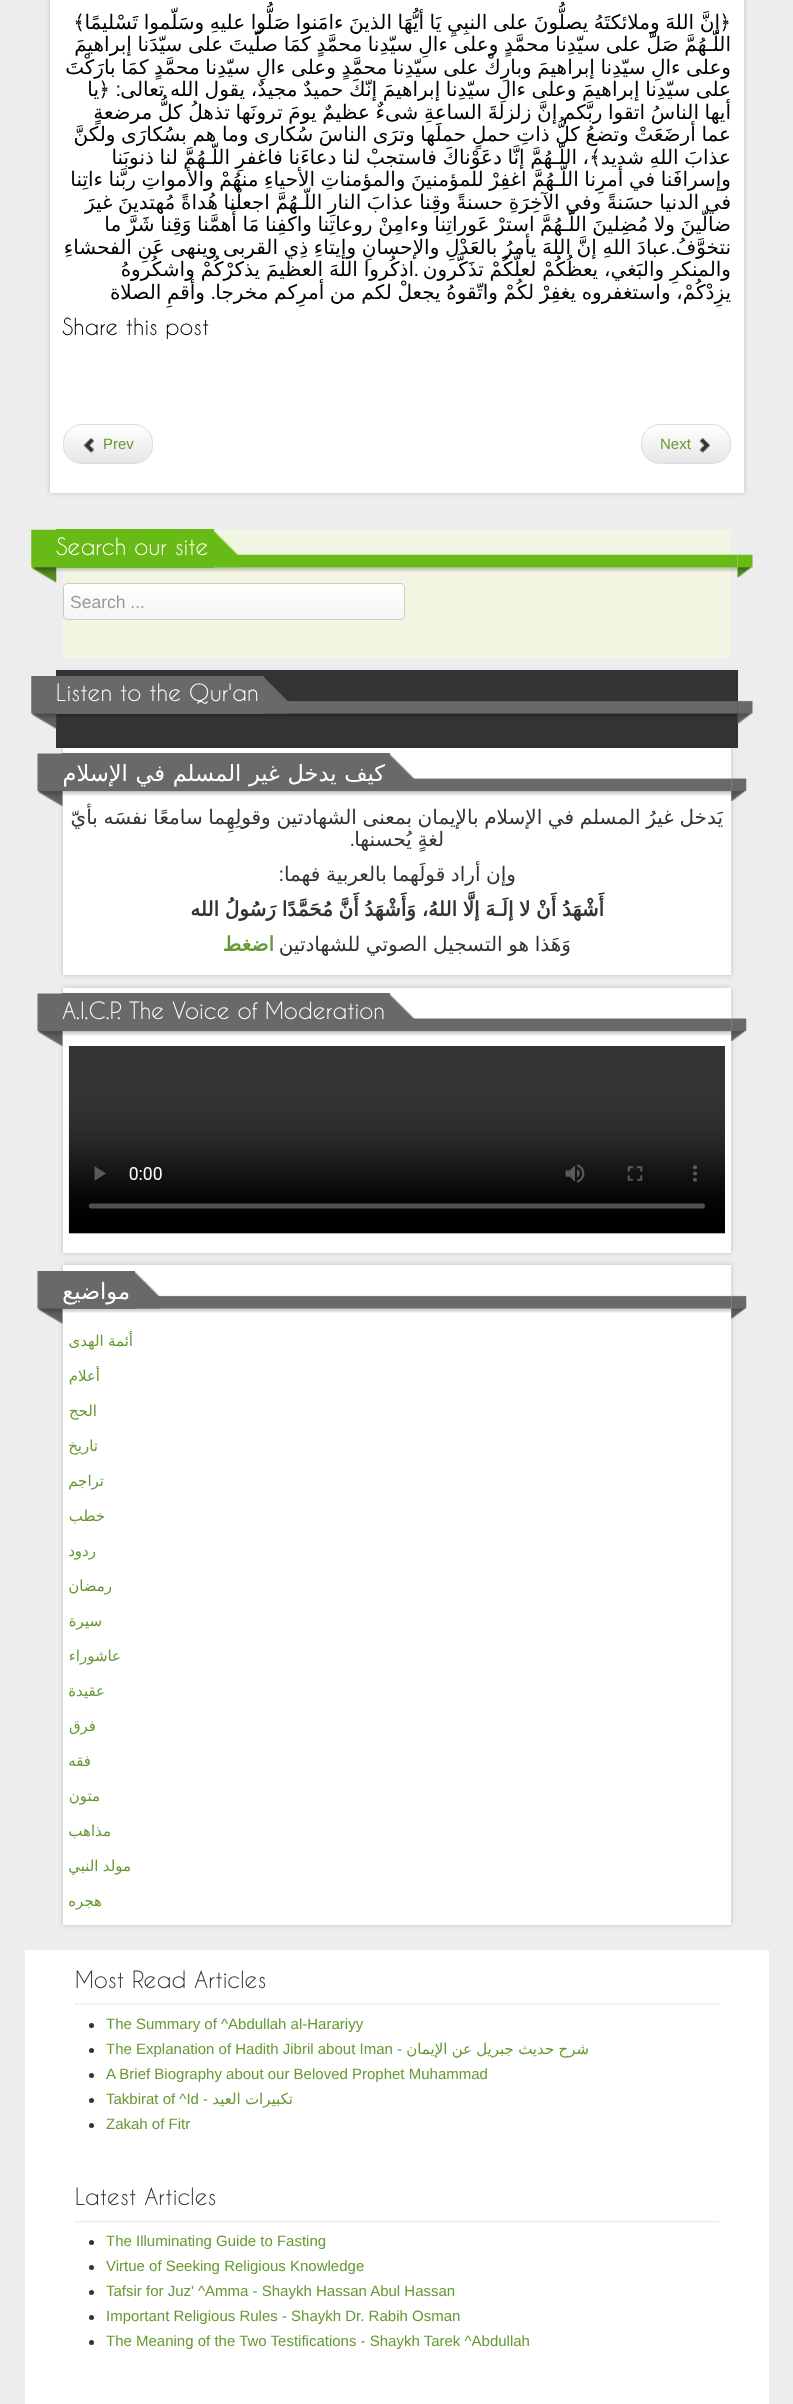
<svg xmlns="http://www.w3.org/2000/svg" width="793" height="2404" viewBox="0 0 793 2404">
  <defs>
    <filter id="blur1" x="-50%" y="-200%" width="200%" height="500%"><feGaussianBlur stdDeviation="2.5"/></filter>
    <clipPath id="clip1"><rect x="641" y="424" width="90" height="40" rx="19"/></clipPath>
    <linearGradient id="g1" gradientUnits="userSpaceOnUse" x1="686" y1="425" x2="686" y2="463"><stop offset="0" stop-color="#ffffff"/><stop offset="1" stop-color="#e6e6e6"/></linearGradient>
    <clipPath id="clip2"><rect x="63" y="424" width="90" height="40" rx="19"/></clipPath>
    <linearGradient id="g2" gradientUnits="userSpaceOnUse" x1="108" y1="425" x2="108" y2="463"><stop offset="0" stop-color="#ffffff"/><stop offset="1" stop-color="#e6e6e6"/></linearGradient>
    <linearGradient id="g3" gradientUnits="userSpaceOnUse" x1="234" y1="583" x2="234" y2="620"><stop offset="0" stop-color="#ffffff"/><stop offset="1" stop-color="#f4f4f4"/></linearGradient>
  </defs>
  <rect width="100%" height="100%" fill="#ededed"/>
  <rect x="50" y="-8" width="694" height="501" fill="#000000" fill-opacity="0.2" filter="url(#blur1)"/>
  <rect x="50" y="0" width="694" height="493" fill="#ffffff"/>
  <text x="720" y="29" word-spacing="-0.75" font-family="DejaVu Sans" font-size="20" direction="rtl" fill="#000000">إنَّ اللهَ وملائكتَهُ يصلُّونَ على النبِيِ يَا أيُّهَا الذينَ ءامَنوا صَلُّوا عليهِ وسَلّموا تَسْليمًا</text>
  <text x="85" y="29" font-family="Cascadia Code" font-size="20" direction="rtl" fill="#000000">﴾</text>
  <text x="731" y="29" font-family="Cascadia Code" font-size="20" direction="rtl" fill="#000000">﴿</text>
  <text x="731" y="51" word-spacing="-0.75" font-family="DejaVu Sans" font-size="20" direction="rtl" fill="#000000">اللّـهُمَّ صَلّ على سيّدِنا محمَّدٍ وعلى ءالِ سيّدِنا محمَّدٍ كمَا صلّيتَ على سيّدَنا إبراهيمَ</text>
  <text x="731" y="74" word-spacing="-0.75" font-family="DejaVu Sans" font-size="20" direction="rtl" fill="#000000">وعلى ءالِ سيّدِنا إبراهيمَ وبارِكْ على سيّدِنا محمَّدٍ وعلى ءالِ سيّدِنا محمَّدٍ كمَا بارَكْتَ</text>
  <text x="731" y="96" word-spacing="-0.75" font-family="DejaVu Sans" font-size="20" direction="rtl" fill="#000000">على سيّدِنا إبراهيمَ وعلى ءالِ سيّدِنا إبراهيمَ إنّكَ حميدٌ مجيدٌ، يقول الله تعالى</text>
  <text x="121" y="96" font-family="Liberation Sans" font-size="20" direction="rtl" fill="#000000">:</text>
  <text x="110" y="96" font-family="Cascadia Code" font-size="20" direction="rtl" fill="#000000">﴿</text>
  <text x="99" y="96" font-family="DejaVu Sans" font-size="20" direction="rtl" fill="#000000">يا</text>
  <text x="731" y="119" word-spacing="-0.75" font-family="DejaVu Sans" font-size="20" direction="rtl" fill="#000000">أيها الناسُ اتقوا ربَّكم إنَّ زلزلةَ الساعةِ شىءٌ عظيمٌ يومَ ترونَها تذهلُ كلُّ مرضعةٍ</text>
  <text x="731" y="141" word-spacing="-0.75" font-family="DejaVu Sans" font-size="20" direction="rtl" fill="#000000">عما أرضَعَتْ وتضعُ كلُّ ذاتِ حملٍ حملَها وترَى الناسَ سُكارى وما هم بسُكارَى ولكنَّ</text>
  <text x="589" y="164" word-spacing="-0.75" font-family="DejaVu Sans" font-size="20" direction="rtl" fill="#000000">، اللّـهُمَّ إنَّا دعَوْناكَ فاستجبْ لنا دعاءَنا فاغفرِ اللّـهُمَّ لنا ذنوبَنا</text>
  <text x="731" y="164" word-spacing="-0.75" font-family="DejaVu Sans" font-size="20" direction="rtl" fill="#000000">عذابَ اللهِ شديد</text>
  <text x="601" y="164" font-family="Cascadia Code" font-size="20" direction="rtl" fill="#000000">﴾</text>
  <text x="731" y="186" word-spacing="-0.75" font-family="DejaVu Sans" font-size="20" direction="rtl" fill="#000000">وإسرافَنا في أمرِنا اللّـهُمَّ اغفِرْ للمؤمنينَ والمؤمناتِ الأحياءِ منهُمْ والأمواتِ ربَّنا ءاتِنا</text>
  <text x="731" y="209" word-spacing="-0.75" font-family="DejaVu Sans" font-size="20" direction="rtl" fill="#000000">في الدنيا حسَنةً وفي الآخِرَةِ حسنةً وقِنا عذابَ النارِ اللّـهُمَّ اجعلْنا هُداةً مُهتدينَ غيرَ</text>
  <text x="731" y="231" word-spacing="-0.75" font-family="DejaVu Sans" font-size="20" direction="rtl" fill="#000000">ضالّينَ ولا مُضِلينَ اللّـهُمَّ استرْ عَوراتِنا وءامِنْ روعاتِنا واكفِنا مَا أَهمَّنا وَقِنا شَرَّ ما</text>
  <text x="670" y="254" word-spacing="-0.75" font-family="DejaVu Sans" font-size="20" direction="rtl" fill="#000000">عبادَ اللهِ إنَّ اللهَ يأمرُ بالعَدْلِ والإحسانِ وإيتاءِ ذِي القربى وينهى عَنِ الفحشاءِ</text>
  <text x="731" y="254" font-family="DejaVu Sans" font-size="20" direction="rtl" fill="#000000">نتخوَّفُ</text>
  <text x="676" y="254" font-family="Liberation Sans" font-size="20" direction="rtl" fill="#000000">.</text>
  <text x="731" y="276" word-spacing="-0.5" font-family="DejaVu Sans" font-size="20" direction="rtl" fill="#000000">والمنكرِ والبَغي، يعظُكُمْ لعلَّكُمْ تذَكَّرون</text>
  <text x="419" y="276" font-family="Liberation Sans" font-size="20" direction="rtl" fill="#000000">.</text>
  <text x="414" y="276" word-spacing="-0.5" font-family="DejaVu Sans" font-size="20" direction="rtl" fill="#000000">اذكُروا اللهَ العظيمَ يذكرْكُمْ واشكُروهُ</text>
  <text x="731" y="299" word-spacing="-0.75" font-family="DejaVu Sans" font-size="20" direction="rtl" fill="#000000">يزِدْكُمْ، واستغفروه يغفِرْ لكُمْ واتّقوهُ يجعلْ لكم من أمرِكم مخرجا</text>
  <text x="216" y="299" font-family="Liberation Sans" font-size="20" direction="rtl" fill="#000000">.</text>
  <text x="205" y="299" word-spacing="-0.75" font-family="DejaVu Sans" font-size="20" direction="rtl" fill="#000000">وأقمِ الصلاة</text>
  <text x="62" y="335" font-family="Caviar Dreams" font-size="22" fill="#000000">Share this post</text>
  <g clip-path="url(#clip1)">
    <rect x="641" y="425" width="90" height="38" fill="url(#g1)"/>
  </g>
  <rect x="641.5" y="424.5" width="89" height="39" rx="18.5" fill="none" stroke="#dddddd"/>
  <image x="699" y="438" width="12" height="15" href="img1.png"/>
  <text x="660" y="449" font-family="Liberation Sans" font-size="15" fill="#669933">Next</text>
  <g clip-path="url(#clip2)">
    <rect x="63" y="425" width="90" height="38" fill="url(#g2)"/>
  </g>
  <rect x="63.5" y="424.5" width="89" height="39" rx="18.5" fill="none" stroke="#dddddd"/>
  <text x="103" y="449" font-family="Liberation Sans" font-size="15" fill="#669933">Prev</text>
  <image x="83" y="438" width="11" height="15" href="img2.png"/>
  <rect x="63" y="530" width="668" height="128" fill="#f1f6e2"/>
  <image x="56" y="554" width="682" height="18" href="img3.png"/>
  <image x="214" y="530" width="25" height="38" href="img4.png"/>
  <image x="31" y="529" width="26" height="54" href="img5.png"/>
  <rect x="56" y="529" width="158" height="39" fill="#68bb16"/>
  <text x="56" y="555" font-family="Caviar Dreams" font-size="22.5" fill="#ffffff">Search our site</text>
  <image x="737" y="554" width="16" height="24" href="img6.png"/>
  <rect x="63.5" y="583.5" width="341" height="36" rx="3.5" fill="url(#g3)" stroke="#cccccc"/>
  <text x="70" y="608" font-family="Liberation Sans" font-size="17.5" fill="#999999">Search ...</text>
  <rect x="56" y="670" width="682" height="78" fill="#333333"/>
  <image x="56" y="701" width="682" height="16" href="img7.png"/>
  <image x="264" y="677" width="25" height="37" href="img8.png"/>
  <image x="31" y="676" width="26" height="53" href="img9.png"/>
  <rect x="56" y="676" width="208" height="38" fill="#696969"/>
  <text x="56" y="701" font-family="Caviar Dreams" font-size="22.5" fill="#ffffff">Listen to the Qur'an</text>
  <image x="737" y="700" width="16" height="24" href="img10.png"/>
  <rect x="63" y="748" width="668" height="227" fill="#000000" fill-opacity="0.2" filter="url(#blur1)"/>
  <rect x="63" y="748" width="668" height="227" fill="#ffffff"/>
  <image x="62" y="778" width="670" height="18" href="img11.png"/>
  <image x="390" y="754" width="25" height="37" href="img12.png"/>
  <image x="37" y="753" width="26" height="53" href="img13.png"/>
  <rect x="62" y="753" width="328" height="38" fill="#696969"/>
  <text x="385" y="781" word-spacing="0.5" font-family="DejaVu Sans" font-size="22.5" direction="rtl" fill="#ffffff">كيف يدخل غير المسلم في الإسلام</text>
  <image x="731" y="778" width="16" height="23" href="img14.png"/>
  <text x="723" y="824" word-spacing="-0.75" font-family="DejaVu Sans" font-size="20" direction="rtl" fill="#333333">يَدخل غيرُ المسلم في الإسلام بالإيمان بمعنى الشهادتين وقولِهِما سامعًا نفسَه بأيّ</text>
  <text x="444" y="846" word-spacing="-0.75" font-family="DejaVu Sans" font-size="20" direction="rtl" fill="#333333">لغةٍ يُحسنها</text>
  <text x="355" y="846" font-family="Liberation Sans" font-size="20" direction="rtl" fill="#333333">.</text>
  <text x="516" y="881" word-spacing="-0.75" font-family="DejaVu Sans" font-size="20" direction="rtl" fill="#333333">وإن أراد قولَهما بالعربية فهما</text>
  <text x="284" y="881" font-family="Liberation Sans" font-size="20" direction="rtl" fill="#333333">:</text>
  <text x="604" y="916" word-spacing="-0.75" font-family="DejaVu Sans" font-size="20" font-weight="bold" direction="rtl" fill="#333333">أَشْهَدُ أَنْ لا إلَـهَ إلَّا اللهُ، وَأَشْهَدُ أَنَّ مُحَمَّدًا رَسُولُ الله</text>
  <text x="571" y="951" word-spacing="-0.75" font-family="DejaVu Sans" font-size="20" direction="rtl" fill="#333333">وَهَذا هو التسجيل الصوتي للشهادتين</text>
  <text x="274" y="951" font-family="DejaVu Sans" font-size="20" font-weight="bold" direction="rtl" fill="#669933">اضغط</text>
  <rect x="63" y="988" width="668" height="265" fill="#000000" fill-opacity="0.2" filter="url(#blur1)"/>
  <rect x="63" y="988" width="668" height="265" fill="#ffffff"/>
  <image x="62" y="1018" width="670" height="18" href="img15.png"/>
  <image x="390" y="994" width="25" height="37" href="img16.png"/>
  <image x="37" y="993" width="26" height="53" href="img17.png"/>
  <rect x="62" y="993" width="328" height="38" fill="#696969"/>
  <text x="62" y="1019" font-family="Caviar Dreams" font-size="22.5" fill="#ffffff">A.I.C.P. The Voice of Moderation</text>
  <image x="731" y="1018" width="16" height="23" href="img18.png"/>
  <image x="68" y="1046" width="657" height="188" href="img19.png"/>
  <rect x="63" y="1265" width="668" height="660" fill="#000000" fill-opacity="0.2" filter="url(#blur1)"/>
  <rect x="63" y="1265" width="668" height="660" fill="#ffffff"/>
  <image x="62" y="1295" width="670" height="18" href="img20.png"/>
  <image x="731" y="1295" width="16" height="24" href="img21.png"/>
  <image x="135" y="1272" width="25" height="37" href="img22.png"/>
  <image x="37" y="1271" width="26" height="53" href="img23.png"/>
  <rect x="62" y="1271" width="73" height="38" fill="#696969"/>
  <text x="130" y="1299" font-family="DejaVu Sans" font-size="22.5" direction="rtl" fill="#ffffff">مواضيع</text>
  <text x="133" y="1346" word-spacing="-0.5" font-family="DejaVu Sans" font-size="15" direction="rtl" fill="#669933">أئمة الهدى</text>
  <text x="100" y="1381" font-family="DejaVu Sans" font-size="15" direction="rtl" fill="#669933">أعلام</text>
  <text x="97" y="1416" font-family="DejaVu Sans" font-size="15" direction="rtl" fill="#669933">الحج</text>
  <text x="98" y="1451" font-family="DejaVu Sans" font-size="15" direction="rtl" fill="#669933">تاريخ</text>
  <text x="104" y="1486" font-family="DejaVu Sans" font-size="15" direction="rtl" fill="#669933">تراجم</text>
  <text x="105" y="1521" font-family="DejaVu Sans" font-size="15" direction="rtl" fill="#669933">خطب</text>
  <text x="96" y="1556" font-family="DejaVu Sans" font-size="15" direction="rtl" fill="#669933">ردود</text>
  <text x="112" y="1591" font-family="DejaVu Sans" font-size="15" direction="rtl" fill="#669933">رمضان</text>
  <text x="102" y="1626" font-family="DejaVu Sans" font-size="15" direction="rtl" fill="#669933">سيرة</text>
  <text x="121" y="1661" font-family="DejaVu Sans" font-size="15" direction="rtl" fill="#669933">عاشوراء</text>
  <text x="105" y="1696" font-family="DejaVu Sans" font-size="15" direction="rtl" fill="#669933">عقيدة</text>
  <text x="96" y="1731" font-family="DejaVu Sans" font-size="15" direction="rtl" fill="#669933">فرق</text>
  <text x="91" y="1766" font-family="DejaVu Sans" font-size="15" direction="rtl" fill="#669933">فقه</text>
  <text x="100" y="1801" font-family="DejaVu Sans" font-size="15" direction="rtl" fill="#669933">متون</text>
  <text x="111" y="1836" font-family="DejaVu Sans" font-size="15" direction="rtl" fill="#669933">مذاهب</text>
  <text x="131" y="1871" word-spacing="-0.5" font-family="DejaVu Sans" font-size="15" direction="rtl" fill="#669933">مولد النبي</text>
  <text x="102" y="1906" font-family="DejaVu Sans" font-size="15" direction="rtl" fill="#669933">هجره</text>
  <rect x="25" y="1950" width="744" height="454" fill="#ffffff"/>
  <image x="75" y="2003" width="644" height="2" href="img24.png"/>
  <text x="75" y="1988" font-family="Caviar Dreams" font-size="22.5" fill="#333333">Most Read Articles</text>
  <text x="106" y="2029" font-family="Liberation Sans" font-size="15" fill="#669933">The Summary of ^Abdullah al-Harariyy</text>
  <circle cx="91.5" cy="2025.5" r="2.5" fill="#333333"/>
  <text x="589" y="2054" word-spacing="-0.5" font-family="DejaVu Sans" font-size="15" direction="rtl" fill="#669933">شرح حديث جبريل عن الإيمان</text>
  <text x="106" y="2054" font-family="Liberation Sans" font-size="15" fill="#669933">The Explanation of Hadith Jibril about Iman -</text>
  <circle cx="91.5" cy="2050.5" r="2.5" fill="#333333"/>
  <text x="106" y="2079" font-family="Liberation Sans" font-size="15" fill="#669933">A Brief Biography about our Beloved Prophet Muhammad</text>
  <circle cx="91.5" cy="2075.5" r="2.5" fill="#333333"/>
  <text x="293" y="2104" word-spacing="-0.5" font-family="DejaVu Sans" font-size="15" direction="rtl" fill="#669933">تكبيرات العيد</text>
  <text x="106" y="2104" font-family="Liberation Sans" font-size="15" fill="#669933">Takbirat of ^Id -</text>
  <circle cx="91.5" cy="2100.5" r="2.5" fill="#333333"/>
  <text x="106" y="2129" font-family="Liberation Sans" font-size="15" fill="#669933">Zakah of Fitr</text>
  <circle cx="91.5" cy="2125.5" r="2.5" fill="#333333"/>
  <image x="75" y="2221" width="644" height="2" href="img25.png"/>
  <text x="75" y="2205" font-family="Caviar Dreams" font-size="22.5" fill="#333333">Latest Articles</text>
  <text x="106" y="2246" font-family="Liberation Sans" font-size="15" fill="#669933">The Illuminating Guide to Fasting</text>
  <circle cx="91.5" cy="2242.5" r="2.5" fill="#333333"/>
  <text x="106" y="2271" font-family="Liberation Sans" font-size="15" fill="#669933">Virtue of Seeking Religious Knowledge</text>
  <circle cx="91.5" cy="2267.5" r="2.5" fill="#333333"/>
  <text x="106" y="2296" font-family="Liberation Sans" font-size="15" fill="#669933">Tafsir for Juz' ^Amma - Shaykh Hassan Abul Hassan</text>
  <circle cx="91.5" cy="2292.5" r="2.5" fill="#333333"/>
  <text x="106" y="2321" font-family="Liberation Sans" font-size="15" fill="#669933">Important Religious Rules - Shaykh Dr. Rabih Osman</text>
  <circle cx="91.5" cy="2317.5" r="2.5" fill="#333333"/>
  <text x="106" y="2346" font-family="Liberation Sans" font-size="15" fill="#669933">The Meaning of the Two Testifications - Shaykh Tarek ^Abdullah</text>
  <circle cx="91.5" cy="2342.5" r="2.5" fill="#333333"/>
</svg>
